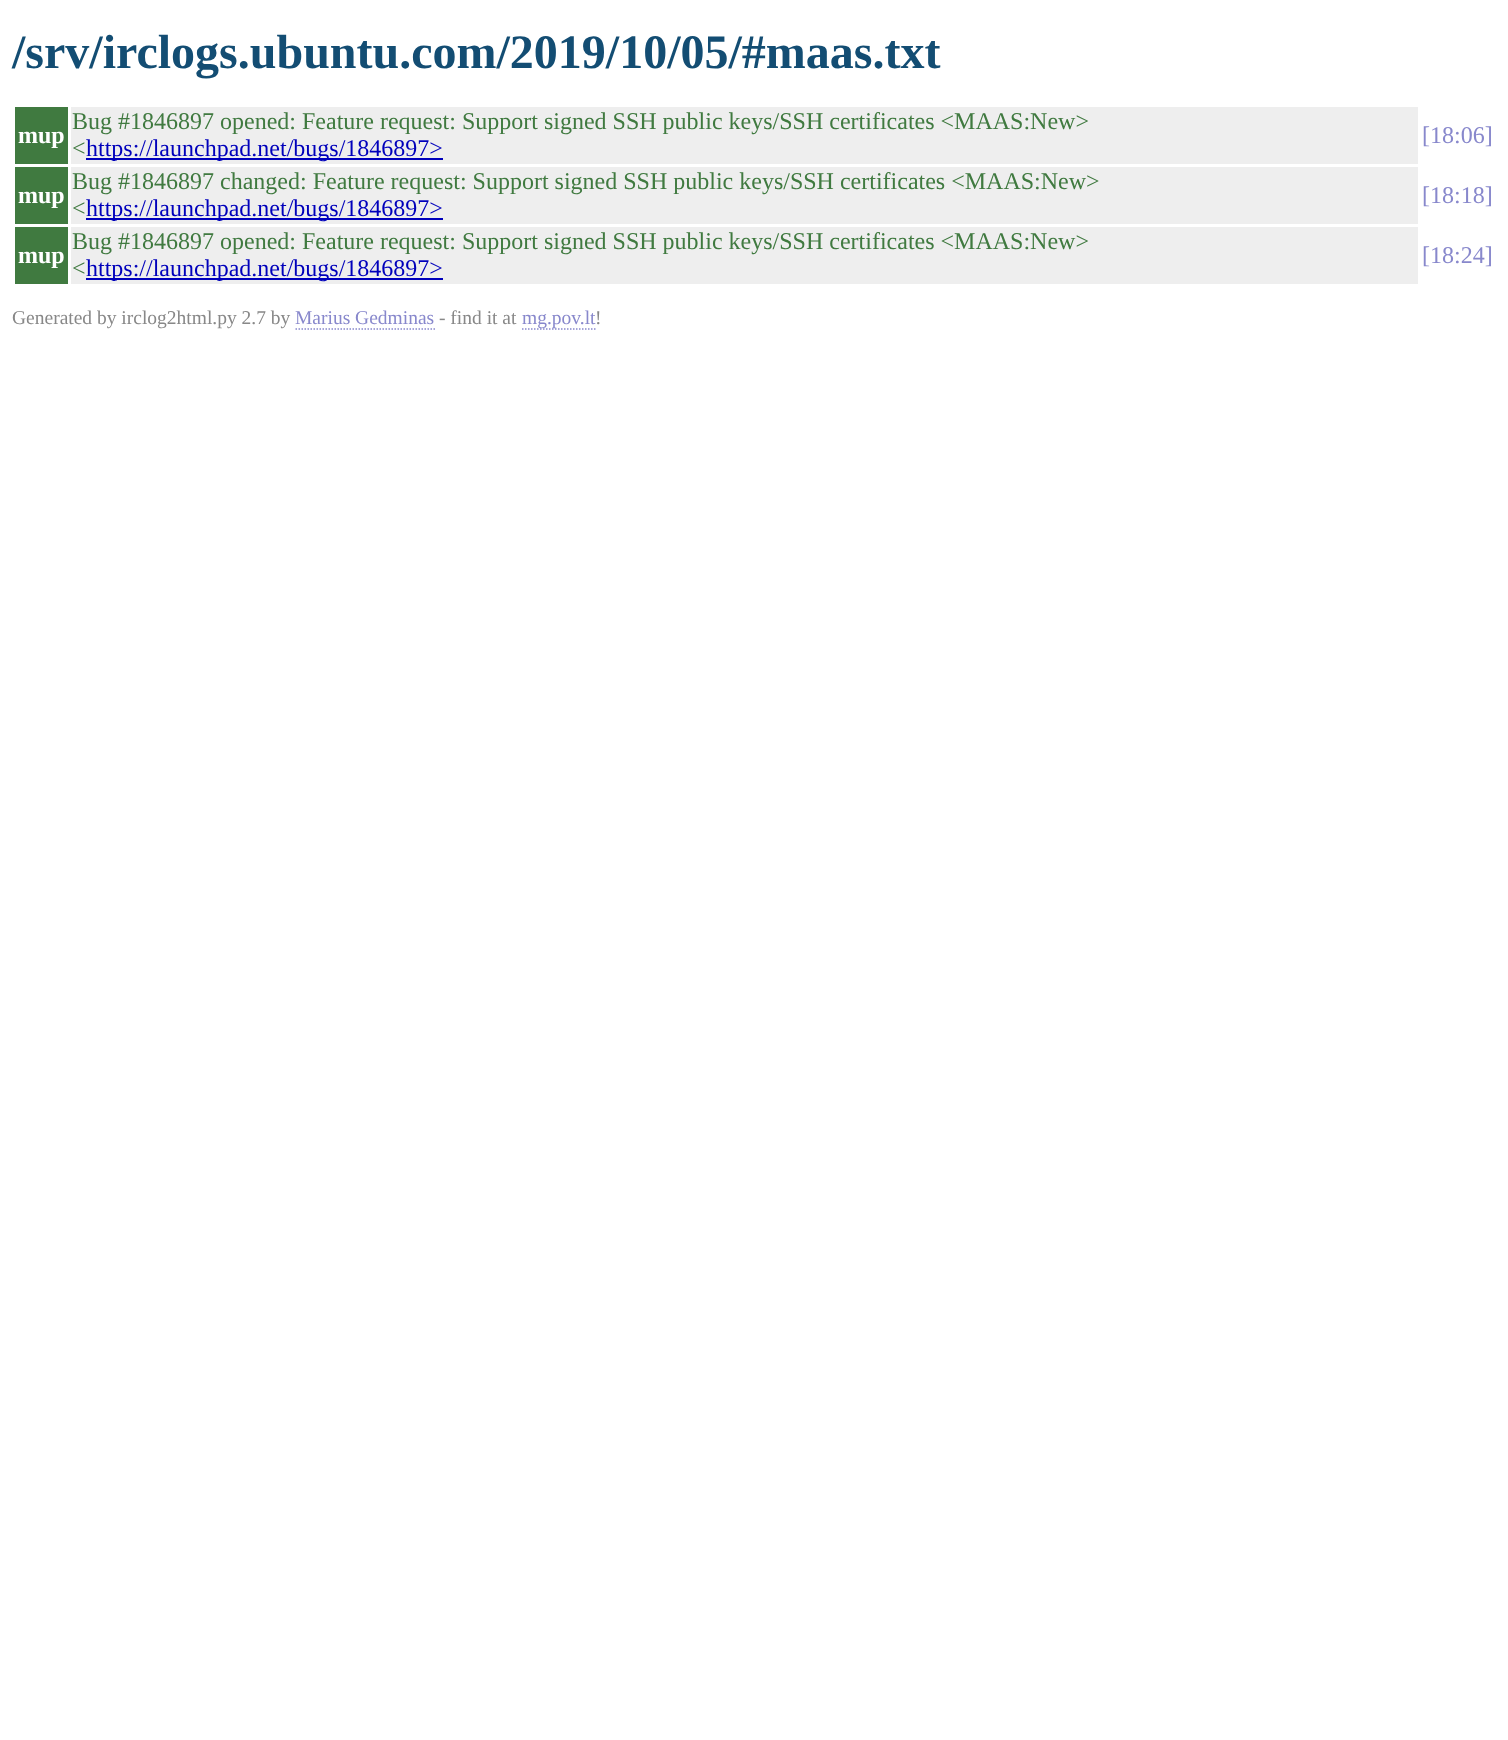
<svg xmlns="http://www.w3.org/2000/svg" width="1508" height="1740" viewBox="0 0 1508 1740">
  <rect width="100%" height="100%" fill="#ffffff"/>
  <text x="12" y="68" font-family="Liberation Serif" font-size="48" font-weight="bold" fill="#134d73">/srv/irclogs.ubuntu.com/2019/10/05/#maas.txt</text>
  <rect x="15" y="107" width="53" height="57" fill="#407a40"/>
  <text x="18" y="143" font-family="Liberation Serif" font-size="24" font-weight="bold" fill="#ffffff">mup</text>
  <rect x="71" y="107" width="1347" height="57" fill="#eeeeee"/>
  <text x="72" y="129" font-family="Liberation Serif" font-size="24" fill="#407a40">Bug #1846897 opened: Feature request: Support signed SSH public keys/SSH certificates &lt;MAAS:New&gt;</text>
  <text x="72" y="156" font-family="Liberation Serif" font-size="24" fill="#407a40">&lt;</text>
  <rect x="86" y="158" width="357" height="2" fill="#0000bb"/>
  <text x="86" y="156" font-family="Liberation Serif" font-size="24" fill="#0000bb">https://launchpad.net/bugs/1846897&gt;</text>
  <text x="1422" y="143" font-family="Liberation Serif" font-size="24" fill="#8888cc">[18:06]</text>
  <rect x="15" y="167" width="53" height="57" fill="#407a40"/>
  <text x="18" y="203" font-family="Liberation Serif" font-size="24" font-weight="bold" fill="#ffffff">mup</text>
  <rect x="71" y="167" width="1347" height="57" fill="#eeeeee"/>
  <text x="72" y="189" font-family="Liberation Serif" font-size="24" fill="#407a40">Bug #1846897 changed: Feature request: Support signed SSH public keys/SSH certificates &lt;MAAS:New&gt;</text>
  <text x="72" y="216" font-family="Liberation Serif" font-size="24" fill="#407a40">&lt;</text>
  <rect x="86" y="218" width="357" height="2" fill="#0000bb"/>
  <text x="86" y="216" font-family="Liberation Serif" font-size="24" fill="#0000bb">https://launchpad.net/bugs/1846897&gt;</text>
  <text x="1422" y="203" font-family="Liberation Serif" font-size="24" fill="#8888cc">[18:18]</text>
  <rect x="15" y="227" width="53" height="57" fill="#407a40"/>
  <text x="18" y="263" font-family="Liberation Serif" font-size="24" font-weight="bold" fill="#ffffff">mup</text>
  <rect x="71" y="227" width="1347" height="57" fill="#eeeeee"/>
  <text x="72" y="249" font-family="Liberation Serif" font-size="24" fill="#407a40">Bug #1846897 opened: Feature request: Support signed SSH public keys/SSH certificates &lt;MAAS:New&gt;</text>
  <text x="72" y="276" font-family="Liberation Serif" font-size="24" fill="#407a40">&lt;</text>
  <rect x="86" y="278" width="357" height="2" fill="#0000bb"/>
  <text x="86" y="276" font-family="Liberation Serif" font-size="24" fill="#0000bb">https://launchpad.net/bugs/1846897&gt;</text>
  <text x="1422" y="263" font-family="Liberation Serif" font-size="24" fill="#8888cc">[18:24]</text>
  <text x="12" y="324" font-family="Liberation Serif" font-size="19.5" fill="#888888">Generated by irclog2html.py 2.7 by</text>
  <text x="295" y="324" font-family="Liberation Serif" font-size="19.5" fill="#8888cc">Marius Gedminas</text>
  <path d="M295.5 329H435" fill="none" stroke="#8888cc" stroke-width="1.5" stroke-dasharray="1.5 1.5"/>
  <text x="439" y="324" font-family="Liberation Serif" font-size="19.5" fill="#888888">- find it at</text>
  <path d="M522 329H595.5" fill="none" stroke="#8888cc" stroke-width="1.5" stroke-dasharray="1.5 1.5"/>
  <text x="522" y="324" font-family="Liberation Serif" font-size="19.5" fill="#8888cc">mg.pov.lt</text>
  <text x="595" y="324" font-family="Liberation Serif" font-size="19.5" fill="#888888">!</text>
</svg>
